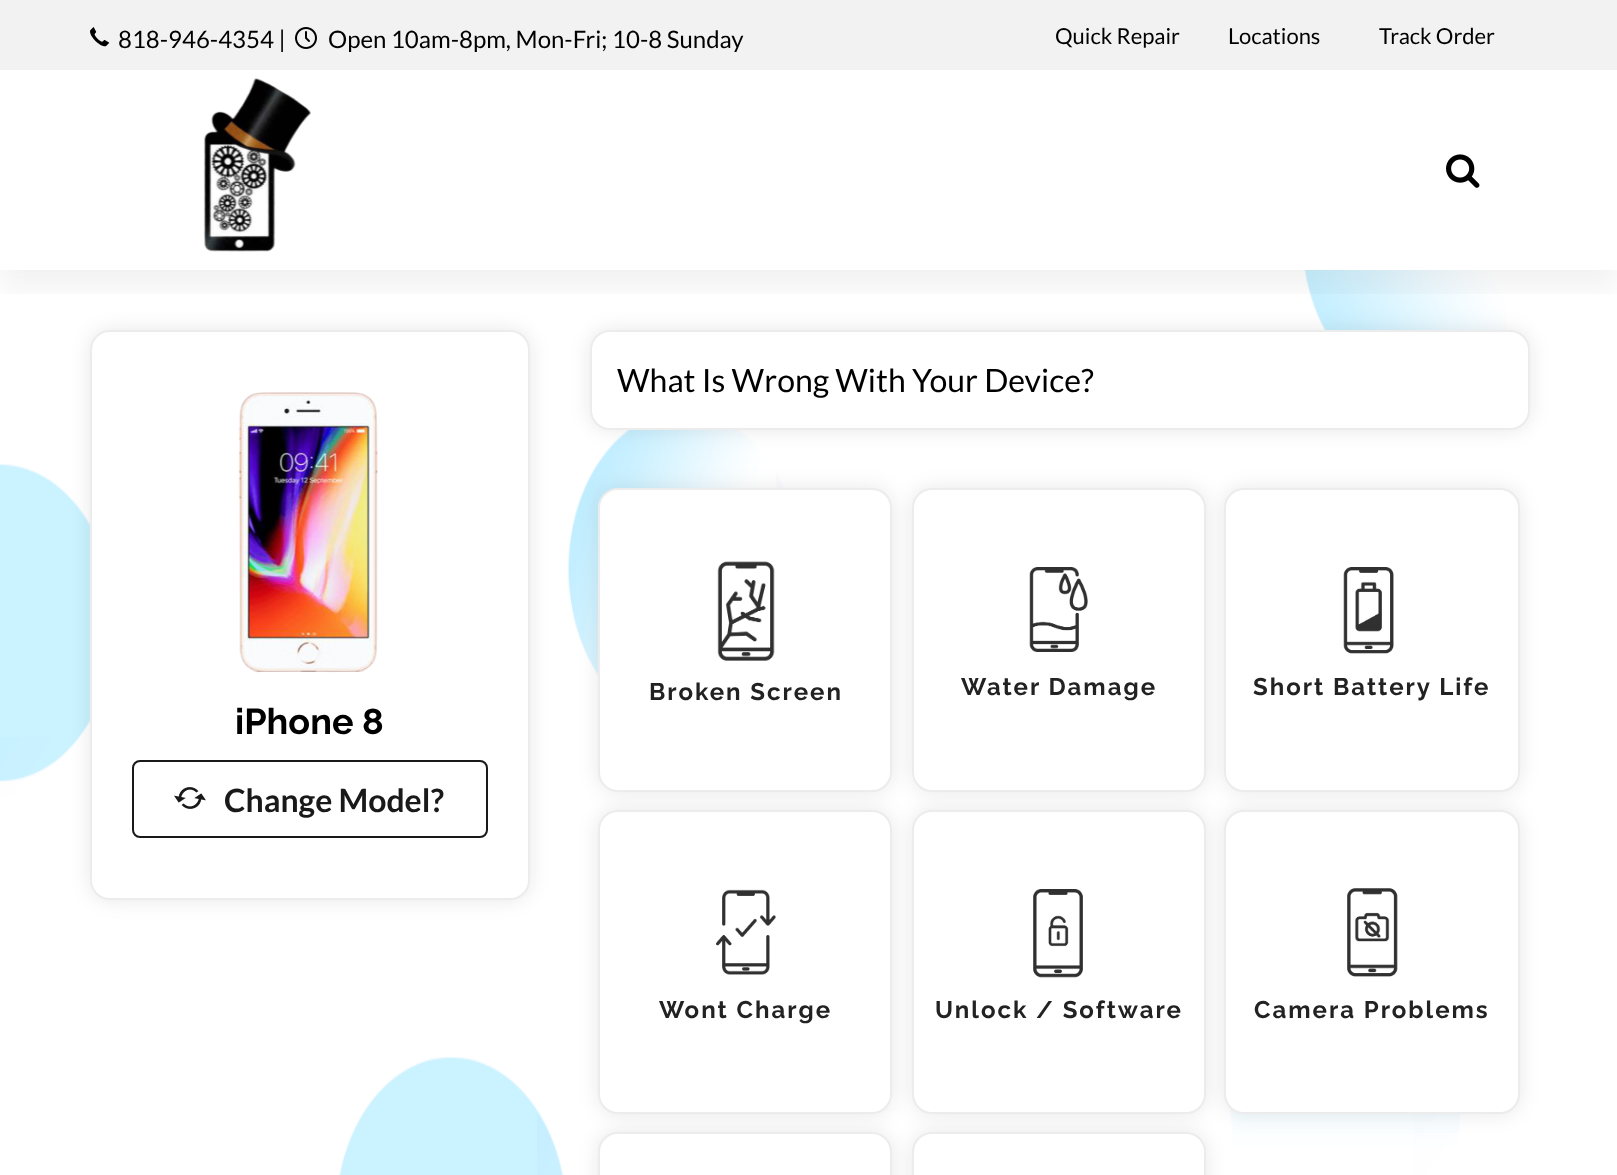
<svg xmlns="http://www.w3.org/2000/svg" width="1617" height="1175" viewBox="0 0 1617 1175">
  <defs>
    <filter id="blur1" x="-50%" y="-200%" width="200%" height="500%"><feGaussianBlur stdDeviation="10"/></filter>
    <clipPath id="clip1"><rect x="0" y="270" width="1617" height="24"/></clipPath>
    <filter id="blur2" x="-50%" y="-200%" width="200%" height="500%"><feGaussianBlur stdDeviation="15"/></filter>
  </defs>
  <rect width="100%" height="100%" fill="#ffffff"/>
  <image x="0" y="270" width="1506" height="905" href="img1.png"/>
  <rect x="0" y="0" width="1617" height="70" fill="#f2f2f2"/>
  <image x="90" y="27" width="20" height="20" href="img2.png"/>
  <text x="118" y="48" font-family="Lato" font-size="24" fill="#000000">818-946-4354 |</text>
  <image x="295" y="27" width="22" height="22" href="img3.png"/>
  <text x="328" y="48" font-family="Lato" font-size="24" fill="#000000">Open 10am-8pm, Mon-Fri; 10-8 Sunday</text>
  <text x="1055" y="44" font-family="Lato" font-size="22" fill="#000000">Quick Repair</text>
  <text x="1228" y="44" font-family="Lato" font-size="22" fill="#000000">Locations</text>
  <text x="1379" y="44" font-family="Lato" font-size="22" fill="#000000">Track Order</text>
  <rect x="90" y="330" width="440" height="570" rx="20" fill="#000000" fill-opacity="0.09" filter="url(#blur1)"/>
  <rect x="91" y="331" width="438" height="568" rx="19" fill="#ffffff" stroke="#ececec" stroke-width="2"/>
  <rect x="590" y="330" width="940" height="100" rx="20" fill="#000000" fill-opacity="0.09" filter="url(#blur1)"/>
  <rect x="591" y="331" width="938" height="98" rx="19" fill="#ffffff" stroke="#ececec" stroke-width="2"/>
  <g clip-path="url(#clip1)">
    <rect x="0" y="90" width="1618" height="200" fill="#000000" fill-opacity="0.05" filter="url(#blur2)"/>
  </g>
  <image x="203" y="78" width="108" height="174" href="img4.png"/>
  <image x="1446" y="154" width="34" height="34" href="img5.png"/>
  <image x="238" y="392" width="140" height="281" href="img6.png"/>
  <text x="235" y="734" font-family="Raleway" font-size="36" font-weight="bold" fill="#000000">iPhone 8</text>
  <rect x="133" y="761" width="354" height="76" rx="7" fill="none" stroke="#191919" stroke-width="2"/>
  <image x="174" y="787" width="32" height="22" href="img7.png"/>
  <text x="224" y="812" font-family="Lato" font-size="32" font-weight="bold" fill="#191919">Change Model?</text>
  <text x="617" y="392" font-family="Lato" font-size="32" fill="#000000">What Is Wrong With Your Device?</text>
  <rect x="598" y="488" width="294" height="304" rx="20" fill="#000000" fill-opacity="0.09" filter="url(#blur1)"/>
  <rect x="599" y="489" width="292" height="302" rx="19" fill="#ffffff" stroke="#ececec" stroke-width="2"/>
  <image x="717" y="561" width="58" height="100" href="img8.png"/>
  <text x="649" y="700" font-family="Raleway" font-size="24" font-weight="bold" letter-spacing="2" fill="#232222">Broken Screen</text>
  <rect x="912" y="488" width="294" height="304" rx="20" fill="#000000" fill-opacity="0.09" filter="url(#blur1)"/>
  <rect x="913" y="489" width="292" height="302" rx="19" fill="#ffffff" stroke="#ececec" stroke-width="2"/>
  <image x="1029" y="567" width="59" height="85" href="img9.png"/>
  <text x="961" y="695" font-family="Raleway" font-size="24" font-weight="bold" letter-spacing="2" fill="#232222">Water Damage</text>
  <rect x="1224" y="488" width="296" height="304" rx="20" fill="#000000" fill-opacity="0.09" filter="url(#blur1)"/>
  <rect x="1225" y="489" width="294" height="302" rx="19" fill="#ffffff" stroke="#ececec" stroke-width="2"/>
  <image x="1343" y="567" width="51" height="87" href="img10.png"/>
  <text x="1253" y="695" font-family="Raleway" font-size="24" font-weight="bold" letter-spacing="2" fill="#232222">Short Battery Life</text>
  <rect x="598" y="810" width="294" height="304" rx="20" fill="#000000" fill-opacity="0.09" filter="url(#blur1)"/>
  <rect x="599" y="811" width="292" height="302" rx="19" fill="#ffffff" stroke="#ececec" stroke-width="2"/>
  <image x="716" y="889" width="60" height="86" href="img11.png"/>
  <text x="659" y="1018" font-family="Raleway" font-size="24" font-weight="bold" letter-spacing="2" fill="#232222">Wont Charge</text>
  <rect x="912" y="810" width="294" height="304" rx="20" fill="#000000" fill-opacity="0.09" filter="url(#blur1)"/>
  <rect x="913" y="811" width="292" height="302" rx="19" fill="#ffffff" stroke="#ececec" stroke-width="2"/>
  <image x="1033" y="889" width="50" height="89" href="img12.png"/>
  <text x="935" y="1018" font-family="Raleway" font-size="24" font-weight="bold" letter-spacing="2" fill="#232222">Unlock / Software</text>
  <rect x="1224" y="810" width="296" height="304" rx="20" fill="#000000" fill-opacity="0.09" filter="url(#blur1)"/>
  <rect x="1225" y="811" width="294" height="302" rx="19" fill="#ffffff" stroke="#ececec" stroke-width="2"/>
  <image x="1347" y="888" width="51" height="89" href="img13.png"/>
  <text x="1254" y="1018" font-family="Raleway" font-size="24" font-weight="bold" letter-spacing="2" fill="#232222">Camera Problems</text>
  <rect x="598" y="1132" width="294" height="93" rx="20" fill="#000000" fill-opacity="0.09" filter="url(#blur1)"/>
  <rect x="599" y="1133" width="292" height="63" rx="19" fill="#ffffff" stroke="#ececec" stroke-width="2"/>
  <rect x="912" y="1132" width="294" height="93" rx="20" fill="#000000" fill-opacity="0.09" filter="url(#blur1)"/>
  <rect x="913" y="1133" width="292" height="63" rx="19" fill="#ffffff" stroke="#ececec" stroke-width="2"/>
</svg>
